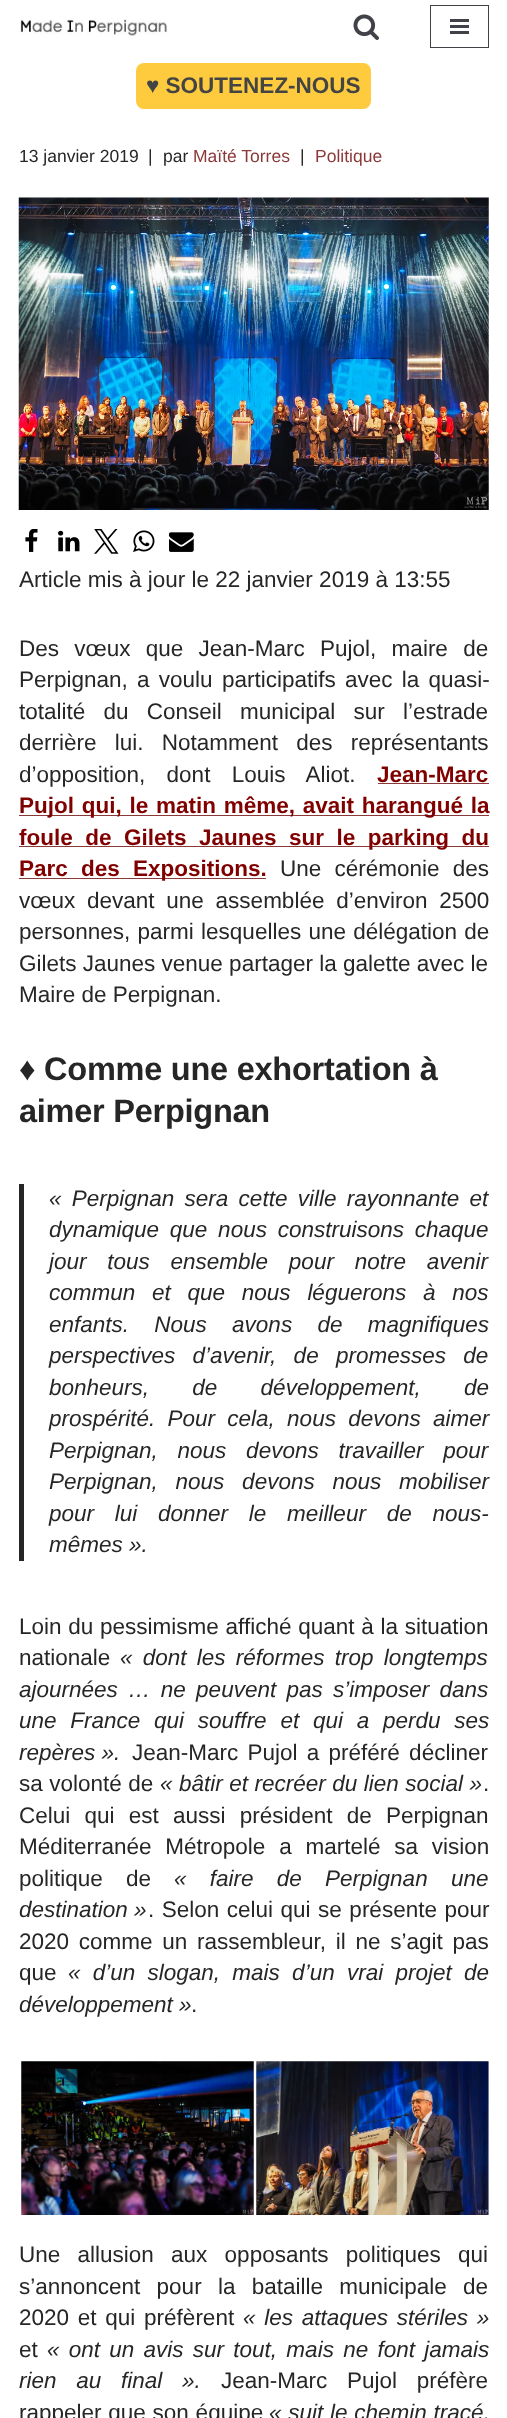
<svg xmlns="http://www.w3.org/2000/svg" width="507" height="2418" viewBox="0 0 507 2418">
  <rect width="100%" height="100%" fill="#ffffff"/>
  <image x="20" y="19" width="148" height="17" href="img1.png"/>
  <image x="353" y="14" width="26" height="26" href="img2.png"/>
  <rect x="430.5" y="5.5" width="58" height="42" fill="none" stroke="#404248"/>
  <rect x="450" y="19" width="19" height="3" fill="#404248"/>
  <rect x="450" y="25" width="19" height="3" fill="#404248"/>
  <rect x="450" y="31" width="19" height="3" fill="#404248"/>
  <rect x="136" y="63" width="235" height="46" rx="8" fill="#fecb3e"/>
  <text x="146" y="93" font-family="Liberation Sans" font-size="22.5" font-weight="bold" fill="#444444">♥︎ SOUTENEZ-NOUS</text>
  <text x="19" y="162" font-family="Liberation Sans" font-size="17.5" fill="#272626">13 janvier 2019</text>
  <text x="148" y="162" font-family="Liberation Sans" font-size="17.5" fill="#272626">|</text>
  <text x="163" y="162" font-family="Liberation Sans" font-size="17.5" fill="#272626">par</text>
  <text x="193" y="162" font-family="Liberation Sans" font-size="17.5" fill="#8b3838">Maïté Torres</text>
  <text x="300" y="162" font-family="Liberation Sans" font-size="17.5" fill="#272626">|</text>
  <text x="315" y="162" font-family="Liberation Sans" font-size="17.5" fill="#8b3838">Politique</text>
  <image x="18" y="197" width="471" height="313" href="img3.png"/>
  <image x="25" y="529" width="13" height="23" href="img4.png"/>
  <image x="58" y="530" width="22" height="22" href="img5.png"/>
  <image x="94" y="529" width="25" height="25" href="img6.png"/>
  <image x="133" y="530" width="22" height="22" href="img7.png"/>
  <image x="169" y="532" width="25" height="20" href="img8.png"/>
  <text x="19" y="587" font-family="Liberation Sans" font-size="22.5" fill="#272626">Article mis à jour le 22 janvier 2019 à 13:55</text>
  <text x="19" y="656" word-spacing="9" font-family="Liberation Sans" font-size="22.5" fill="#272626">Des vœux que Jean-Marc Pujol, maire de</text>
  <text x="19" y="687" word-spacing="3" font-family="Liberation Sans" font-size="22.5" fill="#272626">Perpignan, a voulu participatifs avec la quasi-</text>
  <text x="19" y="719" word-spacing="12" font-family="Liberation Sans" font-size="22.5" fill="#272626">totalité du Conseil municipal sur l’estrade</text>
  <text x="19" y="750" word-spacing="12" font-family="Liberation Sans" font-size="22.5" fill="#272626">derrière lui. Notamment des représentants</text>
  <text x="19" y="782" word-spacing="15" font-family="Liberation Sans" font-size="22.5" fill="#272626">d’opposition, dont Louis Aliot.</text>
  <text x="377" y="782" font-family="Liberation Sans" font-size="22.5" font-weight="bold" fill="#800000">Jean-Marc</text>
  <rect x="378" y="783" width="111" height="1" fill="#8b3838"/>
  <rect x="19" y="815" width="470" height="1" fill="#8b3838"/>
  <text x="19" y="813" word-spacing="1.5" font-family="Liberation Sans" font-size="22.5" font-weight="bold" fill="#800000">Pujol qui, le matin même, avait harangué la</text>
  <rect x="19" y="846" width="470" height="1" fill="#8b3838"/>
  <text x="19" y="845" word-spacing="6.25" font-family="Liberation Sans" font-size="22.5" font-weight="bold" fill="#800000">foule de Gilets Jaunes sur le parking du</text>
  <rect x="19" y="878" width="247" height="1" fill="#8b3838"/>
  <text x="19" y="876" word-spacing="7" font-family="Liberation Sans" font-size="22.5" font-weight="bold" fill="#800000">Parc des Expositions.</text>
  <text x="280" y="876" word-spacing="7" font-family="Liberation Sans" font-size="22.5" fill="#272626">Une cérémonie des</text>
  <text x="19" y="908" word-spacing="5.5" font-family="Liberation Sans" font-size="22.5" fill="#272626">vœux devant une assemblée d’environ 2500</text>
  <text x="19" y="939" word-spacing="1" font-family="Liberation Sans" font-size="22.5" fill="#272626">personnes, parmi lesquelles une délégation de</text>
  <text x="19" y="971" font-family="Liberation Sans" font-size="22.5" fill="#272626">Gilets Jaunes venue partager la galette avec le</text>
  <text x="19" y="1002" font-family="Liberation Sans" font-size="22.5" fill="#272626">Maire de Perpignan.</text>
  <text x="19" y="1080" font-family="Liberation Sans" font-size="32.5" font-weight="bold" letter-spacing="-0.25" fill="#272626">♦ Comme une exhortation à</text>
  <text x="19" y="1122" font-family="Liberation Sans" font-size="32.5" font-weight="bold" letter-spacing="-0.25" fill="#272626">aimer Perpignan</text>
  <rect x="19" y="1184" width="5" height="377" fill="#272626"/>
  <text x="49" y="1206" word-spacing="4" font-family="Liberation Sans" font-size="22.5" font-style="italic" fill="#272626">« Perpignan sera cette ville rayonnante et</text>
  <text x="49" y="1237" word-spacing="4.5" font-family="Liberation Sans" font-size="22.5" font-style="italic" fill="#272626">dynamique que nous construisons chaque</text>
  <text x="49" y="1269" word-spacing="14.5" font-family="Liberation Sans" font-size="22.5" font-style="italic" fill="#272626">jour tous ensemble pour notre avenir</text>
  <text x="49" y="1300" word-spacing="10.5" font-family="Liberation Sans" font-size="22.5" font-style="italic" fill="#272626">commun et que nous léguerons à nos</text>
  <text x="49" y="1332" word-spacing="19" font-family="Liberation Sans" font-size="22.5" font-style="italic" fill="#272626">enfants. Nous avons de magnifiques</text>
  <text x="49" y="1363" word-spacing="11" font-family="Liberation Sans" font-size="22.5" font-style="italic" fill="#272626">perspectives d’avenir, de promesses de</text>
  <text x="49" y="1395" word-spacing="37" font-family="Liberation Sans" font-size="22.5" font-style="italic" fill="#272626">bonheurs, de développement, de</text>
  <text x="49" y="1426" word-spacing="6" font-family="Liberation Sans" font-size="22.5" font-style="italic" fill="#272626">prospérité. Pour cela, nous devons aimer</text>
  <text x="49" y="1458" word-spacing="13.5" font-family="Liberation Sans" font-size="22.5" font-style="italic" fill="#272626">Perpignan, nous devons travailler pour</text>
  <text x="49" y="1489" word-spacing="11.5" font-family="Liberation Sans" font-size="22.5" font-style="italic" fill="#272626">Perpignan, nous devons nous mobiliser</text>
  <text x="49" y="1521" word-spacing="14.5" font-family="Liberation Sans" font-size="22.5" font-style="italic" fill="#272626">pour lui donner le meilleur de nous-</text>
  <text x="49" y="1552" font-family="Liberation Sans" font-size="22.5" font-style="italic" fill="#272626">mêmes ».</text>
  <text x="19" y="1634" word-spacing="0.5" font-family="Liberation Sans" font-size="22.5" fill="#272626">Loin du pessimisme affiché quant à la situation</text>
  <text x="19" y="1665" font-family="Liberation Sans" font-size="22.5" fill="#272626">nationale</text>
  <text x="120" y="1665" word-spacing="4" font-family="Liberation Sans" font-size="22.5" font-style="italic" fill="#272626">« dont les réformes trop longtemps</text>
  <text x="19" y="1697" word-spacing="4" font-family="Liberation Sans" font-size="22.5" font-style="italic" fill="#272626">ajournées … ne peuvent pas s’imposer dans</text>
  <text x="19" y="1728" word-spacing="7.5" font-family="Liberation Sans" font-size="22.5" font-style="italic" fill="#272626">une France qui souffre et qui a perdu ses</text>
  <text x="19" y="1760" font-family="Liberation Sans" font-size="22.5" font-style="italic" fill="#272626">repères ».</text>
  <text x="132" y="1760" word-spacing="3" font-family="Liberation Sans" font-size="22.5" fill="#272626">Jean-Marc Pujol a préféré décliner</text>
  <text x="19" y="1791" word-spacing="0.25" font-family="Liberation Sans" font-size="22.5" fill="#272626">sa volonté de</text>
  <text x="160" y="1791" word-spacing="0.25" font-family="Liberation Sans" font-size="22.5" font-style="italic" fill="#272626">« bâtir et recréer du lien social »</text>
  <text x="483" y="1791" font-family="Liberation Sans" font-size="22.5" fill="#272626">.</text>
  <text x="19" y="1823" word-spacing="8" font-family="Liberation Sans" font-size="22.5" fill="#272626">Celui qui est aussi président de Perpignan</text>
  <text x="19" y="1854" word-spacing="7.5" font-family="Liberation Sans" font-size="22.5" fill="#272626">Méditerranée Métropole a martelé sa vision</text>
  <text x="19" y="1886" word-spacing="17" font-family="Liberation Sans" font-size="22.5" fill="#272626">politique de</text>
  <text x="174" y="1886" word-spacing="17" font-family="Liberation Sans" font-size="22.5" font-style="italic" fill="#272626">« faire de Perpignan une</text>
  <text x="19" y="1917" font-family="Liberation Sans" font-size="22.5" font-style="italic" fill="#272626">destination »</text>
  <text x="148" y="1917" word-spacing="1.25" font-family="Liberation Sans" font-size="22.5" fill="#272626">. Selon celui qui se présente pour</text>
  <text x="19" y="1949" word-spacing="3.5" font-family="Liberation Sans" font-size="22.5" fill="#272626">2020 comme un rassembleur, il ne s’agit pas</text>
  <text x="19" y="1980" font-family="Liberation Sans" font-size="22.5" fill="#272626">que</text>
  <text x="68" y="1980" word-spacing="6" font-family="Liberation Sans" font-size="22.5" font-style="italic" fill="#272626">« d’un slogan, mais d’un vrai projet de</text>
  <text x="19" y="2012" font-family="Liberation Sans" font-size="22.5" font-style="italic" fill="#272626">développement »</text>
  <text x="191" y="2012" font-family="Liberation Sans" font-size="22.5" fill="#272626">.</text>
  <image x="21" y="2061" width="233" height="154" href="img9.png"/>
  <image x="256" y="2061" width="233" height="154" href="img10.png"/>
  <text x="19" y="2262" word-spacing="11" font-family="Liberation Sans" font-size="22.5" fill="#272626">Une allusion aux opposants politiques qui</text>
  <text x="19" y="2294" word-spacing="10" font-family="Liberation Sans" font-size="22.5" fill="#272626">s’annoncent pour la bataille municipale de</text>
  <text x="19" y="2325" word-spacing="2.5" font-family="Liberation Sans" font-size="22.5" fill="#272626">2020 et qui préfèrent</text>
  <text x="243" y="2325" word-spacing="2.5" font-family="Liberation Sans" font-size="22.5" font-style="italic" fill="#272626">« les attaques stériles »</text>
  <text x="19" y="2357" font-family="Liberation Sans" font-size="22.5" fill="#272626">et</text>
  <text x="47" y="2357" word-spacing="3" font-family="Liberation Sans" font-size="22.5" font-style="italic" fill="#272626">« ont un avis sur tout, mais ne font jamais</text>
  <text x="19" y="2388" word-spacing="13.5" font-family="Liberation Sans" font-size="22.5" font-style="italic" fill="#272626">rien au final ».</text>
  <text x="221" y="2388" word-spacing="13.5" font-family="Liberation Sans" font-size="22.5" fill="#272626">Jean-Marc Pujol préfère</text>
  <text x="19" y="2420" word-spacing="0.5" font-family="Liberation Sans" font-size="22.5" fill="#272626">rappeler que son équipe</text>
  <text x="269" y="2420" word-spacing="0.5" font-family="Liberation Sans" font-size="22.5" font-style="italic" fill="#272626">« suit le chemin tracé,</text>
</svg>
